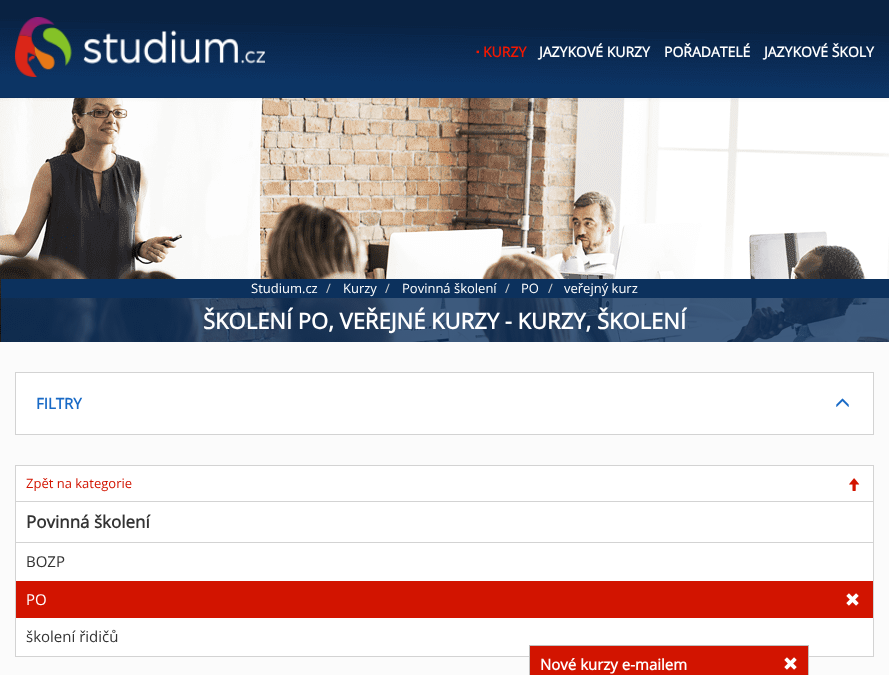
<svg xmlns="http://www.w3.org/2000/svg" width="889" height="675" viewBox="0 0 889 675">
  <rect width="100%" height="100%" fill="#fbfbfb"/>
  <image x="0" y="0" width="889" height="342" href="img1.png"/>
  <image x="15" y="17" width="250" height="60" href="img2.png"/>
  <text x="476" y="55" font-family="Liberation Sans" font-size="10" font-weight="bold" fill="#f41800">▪</text>
  <text x="483" y="57" font-family="Open Sans" font-size="14" font-weight="bold" fill="#f41800">KURZY</text>
  <text x="539" y="57" font-family="Open Sans" font-size="14" font-weight="bold" fill="#ffffff">JAZYKOVÉ KURZY</text>
  <text x="664" y="57" font-family="Open Sans" font-size="14" font-weight="bold" fill="#ffffff">POŘADATELÉ</text>
  <text x="764" y="57" font-family="Open Sans" font-size="14" font-weight="bold" fill="#ffffff">JAZYKOVÉ ŠKOLY</text>
  <rect x="1" y="298" width="888" height="44" fill="#0c315d" fill-opacity="0.8"/>
  <rect x="1" y="279" width="888" height="19" fill="#0c315d"/>
  <text x="251" y="293" font-family="Open Sans" font-size="13" fill="#ffffff">Studium.cz</text>
  <text x="326" y="293" font-family="Open Sans" font-size="13" fill="#cccccc">/</text>
  <text x="343" y="293" font-family="Open Sans" font-size="13" fill="#ffffff">Kurzy</text>
  <text x="385" y="293" font-family="Open Sans" font-size="13" fill="#cccccc">/</text>
  <text x="402" y="293" font-family="Open Sans" font-size="13" fill="#ffffff">Povinná školení</text>
  <text x="505" y="293" font-family="Open Sans" font-size="13" fill="#cccccc">/</text>
  <text x="521" y="293" font-family="Open Sans" font-size="13" fill="#ffffff">PO</text>
  <text x="548" y="293" font-family="Open Sans" font-size="13" fill="#cccccc">/</text>
  <text x="564" y="293" font-family="Open Sans" font-size="13" fill="#ffffff">veřejný kurz</text>
  <text x="203" y="329" font-family="Open Sans" font-size="22" font-weight="bold" fill="#ffffff">ŠKOLENÍ PO, VEŘEJNÉ KURZY - KURZY, ŠKOLENÍ</text>
  <rect x="15.5" y="372.5" width="858" height="62" fill="#ffffff" stroke="#d3d3d3"/>
  <text x="36" y="409" font-family="Open Sans" font-size="15" font-weight="bold" fill="#196ac6">FILTRY</text>
  <image x="836" y="398" width="13" height="9" href="img3.png"/>
  <rect x="15.5" y="465.5" width="858" height="191" fill="none" stroke="#d3d3d3"/>
  <rect x="16" y="466" width="857" height="35" fill="#ffffff"/>
  <rect x="16" y="501" width="857" height="1" fill="#d3d3d3"/>
  <text x="26" y="488" font-family="Open Sans" font-size="13" fill="#d21400">Zpět na kategorie</text>
  <image x="849" y="478" width="11" height="13" href="img4.png"/>
  <rect x="16" y="502" width="857" height="40" fill="#ffffff"/>
  <rect x="16" y="542" width="857" height="1" fill="#d3d3d3"/>
  <text x="26" y="528" font-family="Open Sans" font-size="17" font-weight="bold" fill="#333333">Povinná školení</text>
  <rect x="16" y="543" width="857" height="38" fill="#ffffff"/>
  <text x="26" y="567" font-family="Open Sans" font-size="15" fill="#333333">BOZP</text>
  <rect x="16" y="581" width="857" height="37" fill="#d21400"/>
  <text x="26" y="605" font-family="Open Sans" font-size="15" fill="#ffffff">PO</text>
  <image x="846" y="593" width="13" height="13" href="img5.png"/>
  <rect x="16" y="618" width="857" height="38" fill="#ffffff"/>
  <text x="26" y="642" font-family="Open Sans" font-size="15" fill="#333333">školení řidičů</text>
  <rect x="529.5" y="645.5" width="279" height="29" fill="none" stroke="#c0c0c0"/>
  <rect x="530" y="646" width="278" height="29" fill="#d21400"/>
  <text x="540" y="670" font-family="Open Sans" font-size="15" font-weight="bold" fill="#ffffff">Nové kurzy e-mailem</text>
  <image x="784" y="657" width="13" height="13" href="img5.png"/>
</svg>
